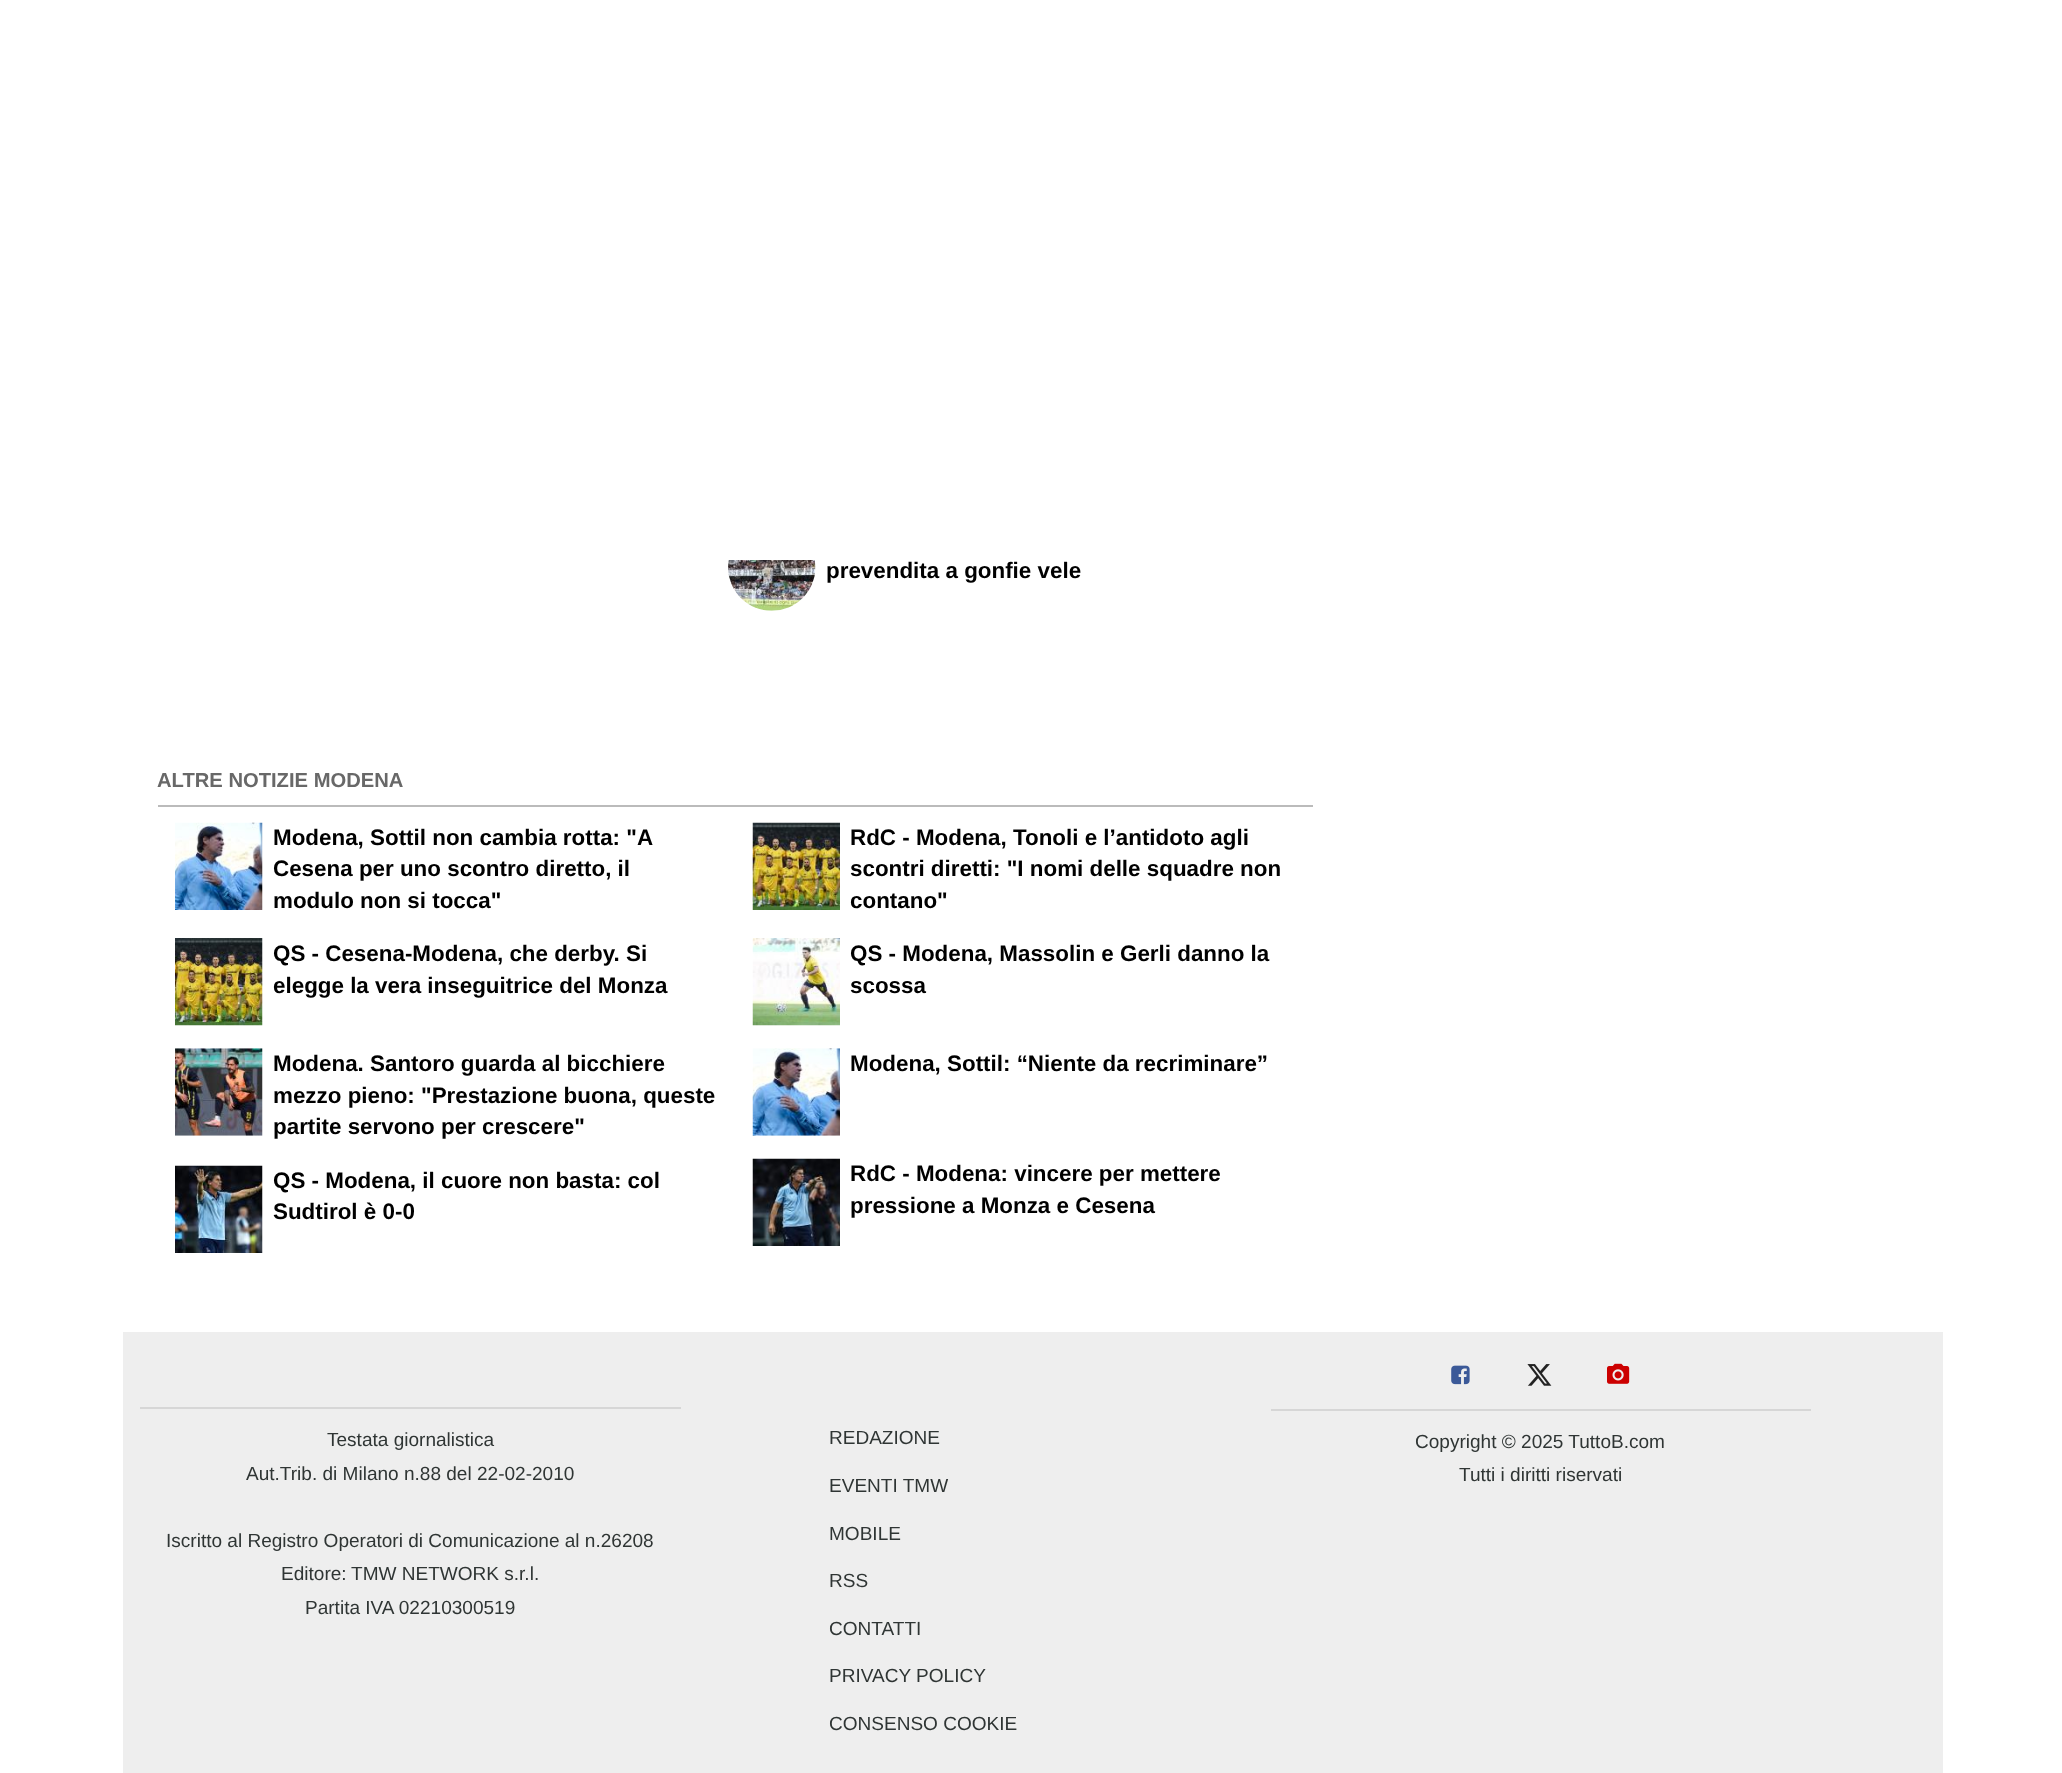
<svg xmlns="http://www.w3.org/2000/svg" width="2062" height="1773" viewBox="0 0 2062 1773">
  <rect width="100%" height="100%" fill="#ffffff"/>
  <image x="728" y="560" width="88" height="51" href="img1.png"/>
  <text x="826" y="578" font-family="Liberation Sans" font-size="22.4" font-weight="bold" fill="#000000">prevendita a gonfie vele</text>
  <rect x="158" y="805" width="1155" height="2" fill="#bbbbbb"/>
  <text x="157" y="787" font-family="Liberation Sans" font-size="20.2" font-weight="bold" fill="#686868">ALTRE NOTIZIE MODENA</text>
  <image x="175" y="822" width="88" height="88" href="img2.png"/>
  <text x="273" y="845" font-family="Liberation Sans" font-size="22.4" font-weight="bold" fill="#000000">Modena, Sottil non cambia rotta: "A</text>
  <text x="273" y="876" font-family="Liberation Sans" font-size="22.4" font-weight="bold" fill="#000000">Cesena per uno scontro diretto, il</text>
  <text x="273" y="908" font-family="Liberation Sans" font-size="22.4" font-weight="bold" fill="#000000">modulo non si tocca"</text>
  <image x="175" y="938" width="88" height="88" href="img3.png"/>
  <text x="273" y="961" font-family="Liberation Sans" font-size="22.4" font-weight="bold" fill="#000000">QS - Cesena-Modena, che derby. Si</text>
  <text x="273" y="993" font-family="Liberation Sans" font-size="22.4" font-weight="bold" fill="#000000">elegge la vera inseguitrice del Monza</text>
  <image x="752" y="822" width="88" height="88" href="img4.png"/>
  <text x="850" y="845" font-family="Liberation Sans" font-size="22.4" font-weight="bold" fill="#000000">RdC - Modena, Tonoli e l’antidoto agli</text>
  <text x="850" y="876" font-family="Liberation Sans" font-size="22.4" font-weight="bold" fill="#000000">scontri diretti: "I nomi delle squadre non</text>
  <text x="850" y="908" font-family="Liberation Sans" font-size="22.4" font-weight="bold" fill="#000000">contano"</text>
  <image x="752" y="938" width="88" height="88" href="img5.png"/>
  <text x="850" y="961" font-family="Liberation Sans" font-size="22.4" font-weight="bold" fill="#000000">QS - Modena, Massolin e Gerli danno la</text>
  <text x="850" y="993" font-family="Liberation Sans" font-size="22.4" font-weight="bold" fill="#000000">scossa</text>
  <image x="175" y="1048" width="88" height="88" href="img6.png"/>
  <text x="273" y="1071" font-family="Liberation Sans" font-size="22.4" font-weight="bold" fill="#000000">Modena. Santoro guarda al bicchiere</text>
  <text x="273" y="1103" font-family="Liberation Sans" font-size="22.4" font-weight="bold" fill="#000000">mezzo pieno: "Prestazione buona, queste</text>
  <text x="273" y="1134" font-family="Liberation Sans" font-size="22.4" font-weight="bold" fill="#000000">partite servono per crescere"</text>
  <image x="175" y="1165" width="88" height="88" href="img7.png"/>
  <text x="273" y="1188" font-family="Liberation Sans" font-size="22.4" font-weight="bold" fill="#000000">QS - Modena, il cuore non basta: col</text>
  <text x="273" y="1219" font-family="Liberation Sans" font-size="22.4" font-weight="bold" fill="#000000">Sudtirol è 0-0</text>
  <image x="752" y="1048" width="88" height="88" href="img8.png"/>
  <text x="850" y="1071" font-family="Liberation Sans" font-size="22.4" font-weight="bold" fill="#000000">Modena, Sottil: “Niente da recriminare”</text>
  <image x="752" y="1158" width="88" height="88" href="img9.png"/>
  <text x="850" y="1181" font-family="Liberation Sans" font-size="22.4" font-weight="bold" fill="#000000">RdC - Modena: vincere per mettere</text>
  <text x="850" y="1213" font-family="Liberation Sans" font-size="22.4" font-weight="bold" fill="#000000">pressione a Monza e Cesena</text>
  <rect x="123" y="1332" width="1820" height="441" fill="#eeeeee"/>
  <rect x="140" y="1407" width="541" height="2" fill="#d6d6d6"/>
  <text x="327" y="1446" font-family="Liberation Sans" font-size="19.05" fill="#2f3534">Testata giornalistica</text>
  <text x="246" y="1480" font-family="Liberation Sans" font-size="19.05" fill="#2f3534">Aut.Trib. di Milano n.88 del 22-02-2010</text>
  <text x="166" y="1547" font-family="Liberation Sans" font-size="19.05" fill="#2f3534">Iscritto al Registro Operatori di Comunicazione al n.26208</text>
  <text x="281" y="1580" font-family="Liberation Sans" font-size="19.05" fill="#2f3534">Editore:</text>
  <text x="351" y="1580" font-family="Liberation Sans" font-size="19.05" fill="#2f3534">TMW NETWORK s.r.l.</text>
  <text x="305" y="1614" font-family="Liberation Sans" font-size="19.05" fill="#2f3534">Partita IVA 02210300519</text>
  <text x="829" y="1444" font-family="Liberation Sans" font-size="19.05" fill="#2f3534">REDAZIONE</text>
  <text x="829" y="1492" font-family="Liberation Sans" font-size="19.05" fill="#2f3534">EVENTI TMW</text>
  <text x="829" y="1540" font-family="Liberation Sans" font-size="19.05" fill="#2f3534">MOBILE</text>
  <text x="829" y="1587" font-family="Liberation Sans" font-size="19.05" fill="#2f3534">RSS</text>
  <text x="829" y="1635" font-family="Liberation Sans" font-size="19.05" fill="#2f3534">CONTATTI</text>
  <text x="829" y="1682" font-family="Liberation Sans" font-size="19.05" fill="#2f3534">PRIVACY POLICY</text>
  <text x="829" y="1730" font-family="Liberation Sans" font-size="19.05" fill="#2f3534">CONSENSO COOKIE</text>
  <image x="1451" y="1365" width="19" height="20" href="img10.png"/>
  <image x="1527" y="1364" width="25" height="22" href="img11.png"/>
  <image x="1607" y="1363" width="23" height="21" href="img12.png"/>
  <rect x="1271" y="1409" width="540" height="2" fill="#d6d6d6"/>
  <text x="1415" y="1448" font-family="Liberation Sans" font-size="19.05" fill="#2f3534">Copyright © 2025 TuttoB.com</text>
  <text x="1459" y="1481" font-family="Liberation Sans" font-size="19.05" fill="#2f3534">Tutti i diritti riservati</text>
</svg>
